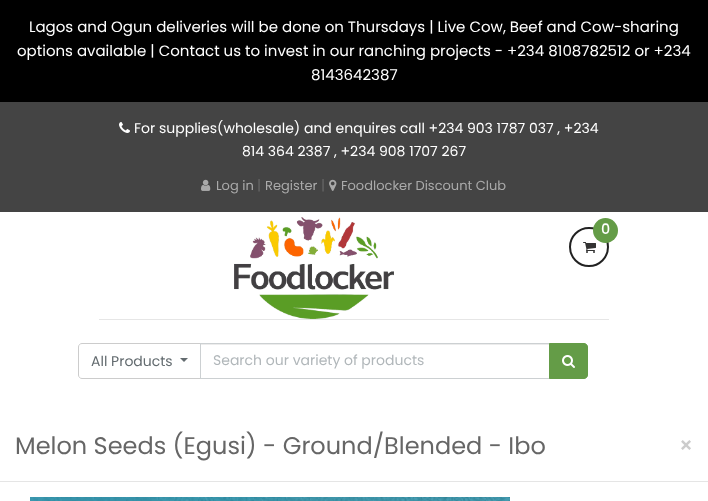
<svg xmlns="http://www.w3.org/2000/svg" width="708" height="501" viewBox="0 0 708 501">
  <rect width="100%" height="100%" fill="#ffffff"/>
  <rect x="0" y="0" width="708" height="102" fill="#000000"/>
  <text x="29" y="32" font-family="Poppins" font-size="15" fill="#ffffff">Lagos and Ogun deliveries will be done on Thursdays | Live Cow, Beef and Cow-sharing</text>
  <text x="17" y="56" font-family="Poppins" font-size="15" fill="#ffffff">options available | Contact us to invest in our ranching projects - +234 8108782512 or +234</text>
  <text x="311" y="80" font-family="Poppins" font-size="15" fill="#ffffff">8143642387</text>
  <rect x="0" y="102" width="708" height="110" fill="#444444"/>
  <image x="119" y="122" width="11" height="11" href="img1.png"/>
  <text x="134" y="133" font-family="Poppins" font-size="14" fill="#ffffff">For supplies(wholesale) and enquires call +234 903 1787 037 , +234</text>
  <text x="242" y="156" font-family="Poppins" font-size="14" fill="#ffffff">814 364 2387 , +234 908 1707 267</text>
  <image x="201" y="179" width="10" height="12" href="img2.png"/>
  <text x="216" y="190" font-family="Poppins" font-size="13" fill="#aaaaaa">Log in</text>
  <text x="257" y="190" font-family="Poppins" font-size="14" fill="#666666">|</text>
  <text x="265" y="190" font-family="Poppins" font-size="13" fill="#aaaaaa">Register</text>
  <text x="321" y="190" font-family="Poppins" font-size="14" fill="#666666">|</text>
  <image x="329" y="179" width="8" height="12" href="img3.png"/>
  <text x="341" y="190" font-family="Poppins" font-size="13" fill="#aaaaaa">Foodlocker Discount Club</text>
  <image x="234" y="217" width="160" height="102" href="img4.png"/>
  <circle cx="589" cy="247" r="19" fill="none" stroke="#222222" stroke-width="2"/>
  <image x="583" y="242" width="13" height="11" href="img5.png"/>
  <circle cx="605.5" cy="230.5" r="12.5" fill="#649c47"/>
  <text x="601" y="234" font-family="Poppins" font-size="14" font-weight="bold" fill="#ffffff">0</text>
  <rect x="99" y="319" width="510" height="1" fill="#e6e6e6"/>
  <path d="M82 343.5H200.5V378.5H82C80 378.5 78.5 377 78.5 375V347C78.5 345 80 343.5 82 343.5Z" fill="none" stroke="#cccccc"/>
  <text x="91" y="366" font-family="Poppins" font-size="14" fill="#636b6f">All Products</text>
  <path d="M180 358H188L184 362Z" fill="#636b6f"/>
  <rect x="201" y="344" width="348" height="1" fill="#ececec"/>
  <rect x="200.5" y="343.5" width="349" height="35" fill="none" stroke="#ccd0d2"/>
  <text x="213" y="365" font-family="Poppins" font-size="14" fill="#b1b7ba">Search our variety of products</text>
  <path d="M549.5 343.5H584C586 343.5 587.5 345 587.5 347V375C587.5 377 586 378.5 584 378.5H549.5Z" fill="#649c47" stroke="#649c47"/>
  <image x="562" y="355" width="13" height="13" href="img6.png"/>
  <rect x="0" y="481" width="708" height="1" fill="#e5e5e5"/>
  <text x="15" y="454" font-family="Poppins" font-size="24" fill="#666666">Melon Seeds (Egusi) - Ground/Blended - Ibo</text>
  <text x="679" y="453" font-family="Poppins" font-size="21" font-weight="bold" fill="#cccccc">×</text>
  <image x="30" y="497" width="480" height="4" href="img7.png"/>
</svg>
